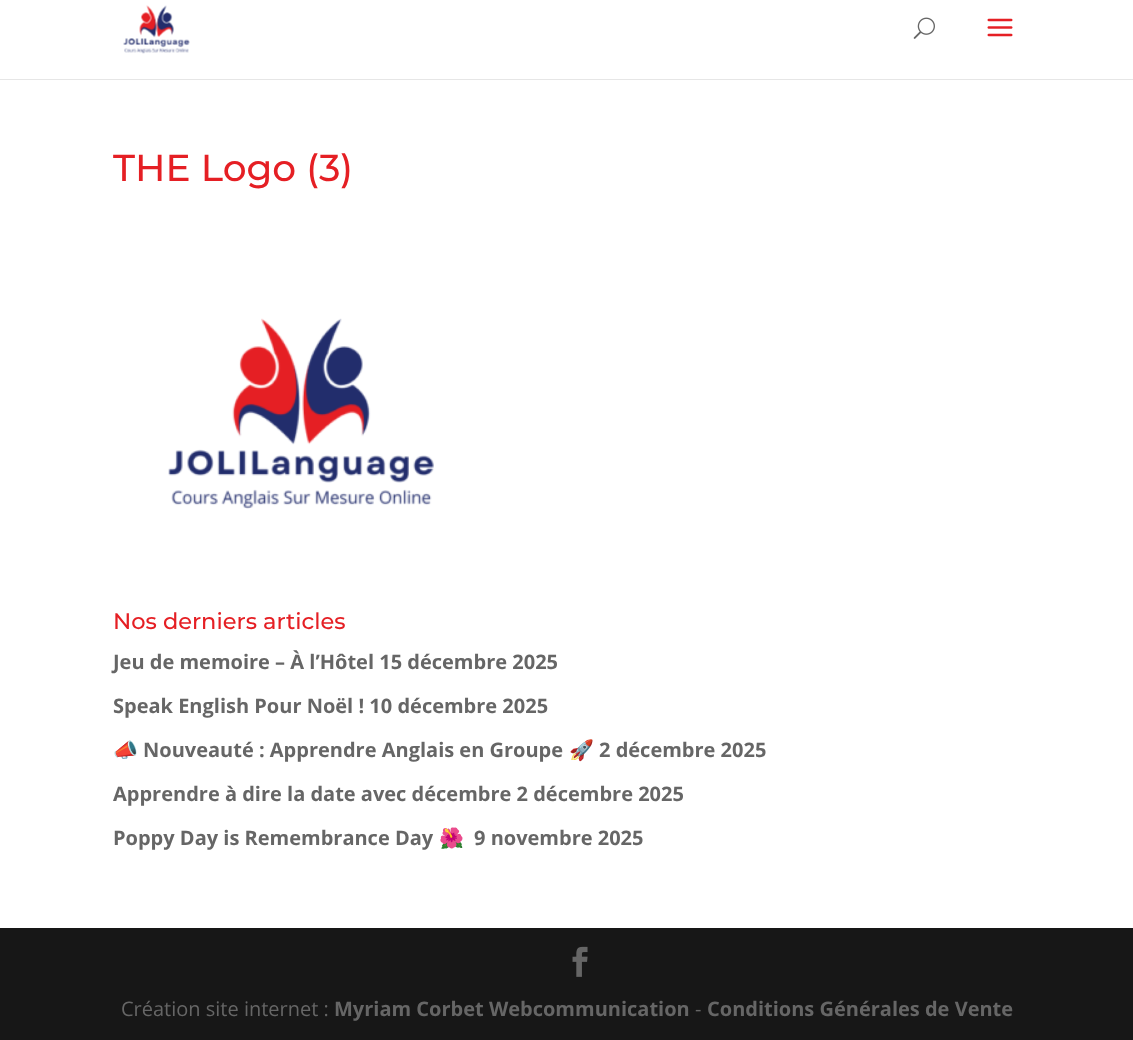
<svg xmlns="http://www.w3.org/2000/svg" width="1133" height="1040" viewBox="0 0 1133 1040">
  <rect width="100%" height="100%" fill="#ffffff"/>
  <path d="M0 79V80H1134V-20V79Z" fill="#e6e6e6"/>
  <image x="123" y="5" width="67" height="49" href="img1.png"/>
  <image x="913" y="17" width="22" height="22" href="img2.png"/>
  <image x="987" y="18" width="26" height="19" href="img3.png"/>
  <text x="113" y="181" font-family="Montserrat" font-size="37.5" font-weight="100" fill="#e51f24">THE Logo (3)</text>
  <image x="168" y="318" width="266" height="191" href="img4.png"/>
  <text x="113" y="629" font-family="Montserrat" font-size="22.5" font-weight="100" fill="#e51f24">Nos derniers articles</text>
  <text x="113" y="669" font-family="Open Sans" font-size="20" font-weight="bold" fill="#666666">Jeu de memoire – À l’Hôtel 15 décembre 2025</text>
  <text x="113" y="713" font-family="Open Sans" font-size="20" font-weight="bold" fill="#666666">Speak English Pour Noël ! 10 décembre 2025</text>
  <text x="113" y="757" font-family="Noto Color Emoji" font-size="20" font-weight="bold" fill="#666666">📣</text>
  <text x="143" y="757" font-family="Open Sans" font-size="20" font-weight="bold" fill="#666666">Nouveauté : Apprendre Anglais en Groupe</text>
  <text x="569" y="757" font-family="Noto Color Emoji" font-size="20" font-weight="bold" fill="#666666">🚀</text>
  <text x="599" y="757" font-family="Open Sans" font-size="20" font-weight="bold" fill="#666666">2 décembre 2025</text>
  <text x="113" y="801" font-family="Open Sans" font-size="20" font-weight="bold" fill="#666666">Apprendre à dire la date avec décembre 2 décembre 2025</text>
  <text x="113" y="845" font-family="Open Sans" font-size="20" font-weight="bold" fill="#666666">Poppy Day is Remembrance Day</text>
  <text x="439" y="845" font-family="Noto Color Emoji" font-size="20" font-weight="bold" fill="#666666">🌺</text>
  <text x="474" y="845" font-family="Open Sans" font-size="20" font-weight="bold" fill="#666666">9 novembre 2025</text>
  <rect x="0" y="928" width="1133" height="112" fill="#171717"/>
  <image x="572" y="946" width="16" height="31" href="img5.png"/>
  <text x="121" y="1016" font-family="Open Sans" font-size="20" fill="#666666">Création site internet :</text>
  <text x="334" y="1016" font-family="Open Sans" font-size="20" font-weight="bold" fill="#666666">Myriam Corbet Webcommunication</text>
  <text x="695" y="1016" font-family="Open Sans" font-size="20" fill="#666666">-</text>
  <text x="707" y="1016" font-family="Open Sans" font-size="20" font-weight="bold" fill="#666666">Conditions Générales de Vente</text>
</svg>
